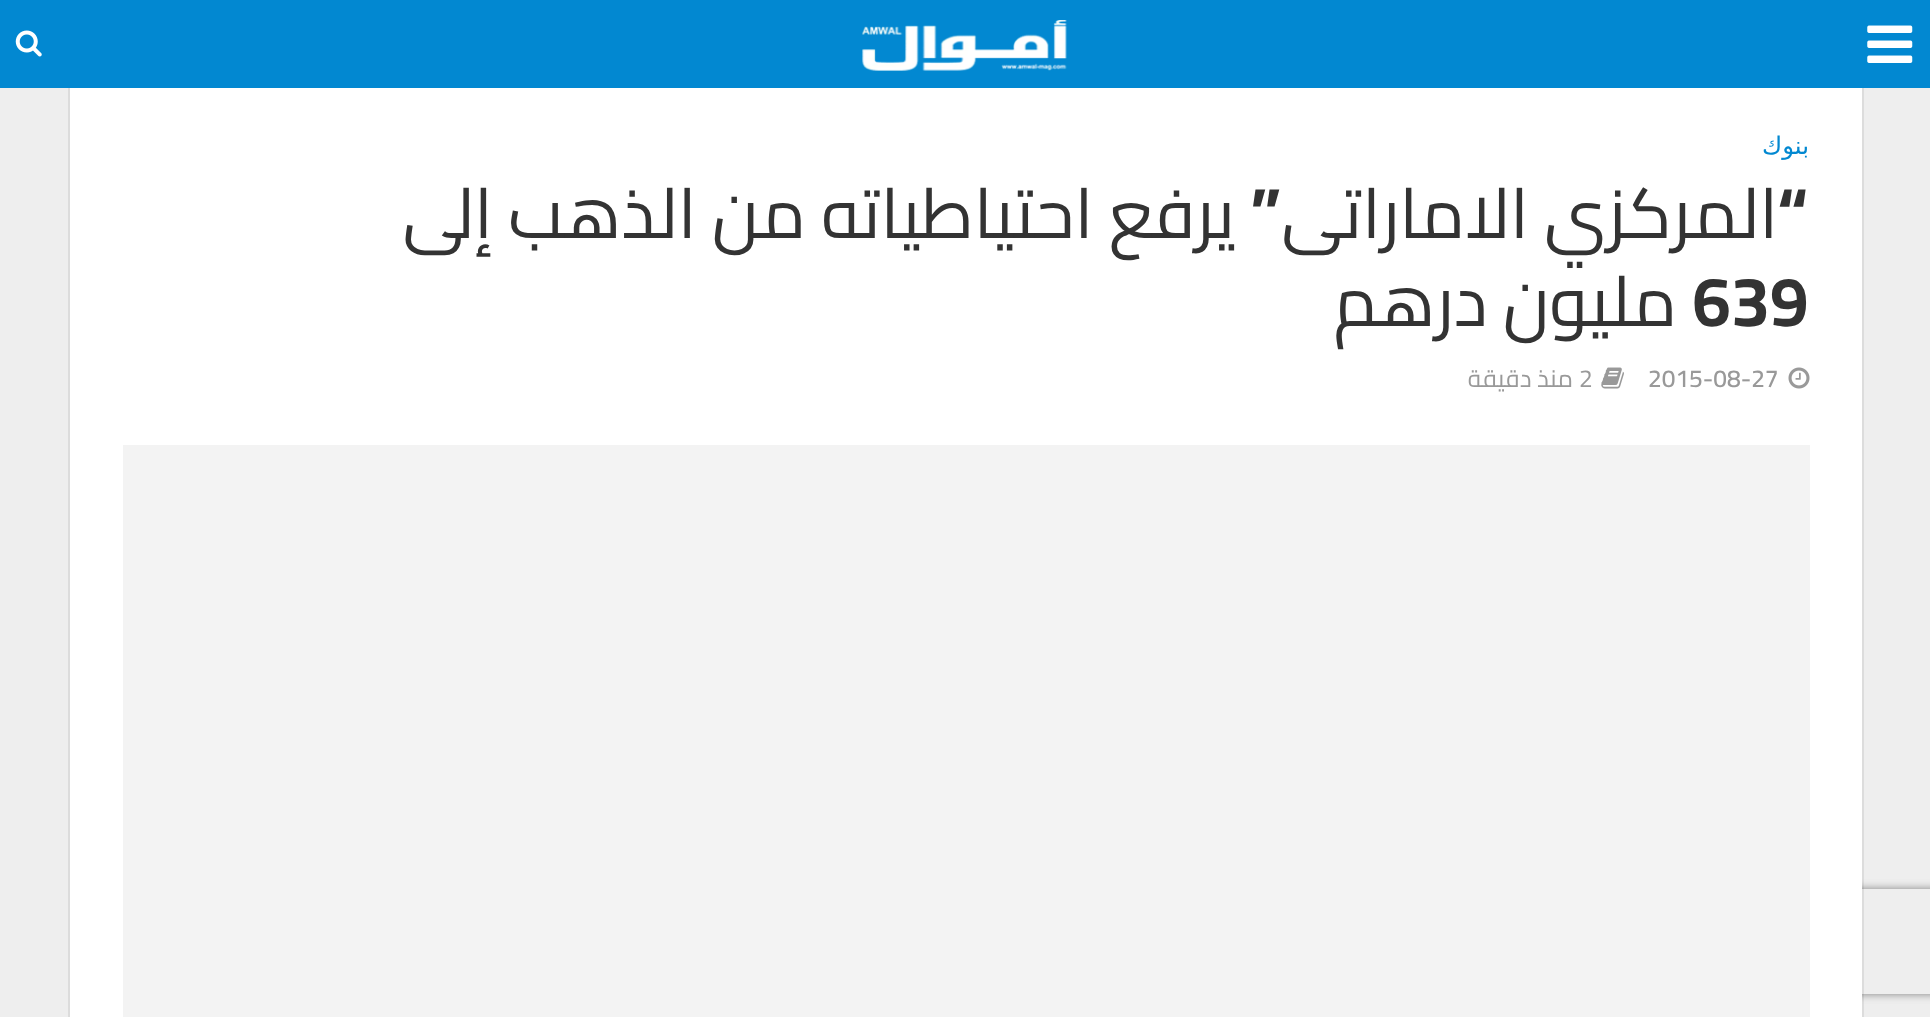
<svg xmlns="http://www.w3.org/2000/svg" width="1930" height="1017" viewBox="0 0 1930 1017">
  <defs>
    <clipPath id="clip1"><path d="M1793 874H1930V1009H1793ZM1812 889H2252C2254 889 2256 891 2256 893V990C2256 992 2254 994 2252 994H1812C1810 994 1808 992 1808 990V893C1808 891 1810 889 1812 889Z" clip-rule="evenodd"/></clipPath>
    <filter id="blur1" x="-50%" y="-200%" width="200%" height="500%"><feGaussianBlur stdDeviation="4.5"/></filter>
  </defs>
  <rect width="100%" height="100%" fill="#eeeeee"/>
  <g clip-path="url(#clip1)">
    <rect x="1808" y="889" width="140" height="105" rx="4" fill="#808080" filter="url(#blur1)"/>
  </g>
  <rect x="69" y="69" width="1794" height="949" fill="none" stroke="#444444" stroke-opacity="0.1" stroke-width="2"/>
  <rect x="0" y="0" width="1930" height="88" fill="#0288d1"/>
  <image x="1867" y="25" width="46" height="38" href="img1.png"/>
  <image x="862" y="20" width="205" height="51" href="img2.png"/>
  <image x="15" y="30" width="27" height="27" href="img3.png"/>
  <rect x="70" y="88" width="1792" height="929" fill="#ffffff"/>
  <text x="1809" y="154" font-family="DejaVu Sans" font-size="24.5" direction="rtl" fill="#0288d1">بنوك</text>
  <text x="1808" y="238" font-family="Cairo" font-size="70" font-weight="bold" direction="rtl" fill="#333333">“</text>
  <text x="1778" y="238" font-family="Cairo" font-size="70" direction="rtl" fill="#333333">المركزي الاماراتى</text>
  <text x="1281" y="238" font-family="Cairo" font-size="70" font-weight="bold" direction="rtl" fill="#333333">”</text>
  <text x="1235" y="238" font-family="Cairo" font-size="70" direction="rtl" fill="#333333">يرفع احتياطياته من الذهب إلى</text>
  <text x="1692" y="326" font-family="Cairo" font-size="70" font-weight="bold" fill="#333333">639</text>
  <text x="1677" y="326" font-family="Cairo" font-size="70" direction="rtl" fill="#333333">مليون درهم</text>
  <image x="1788" y="367" width="22" height="22" href="img4.png"/>
  <text x="1648" y="387" font-family="Cairo" font-size="24.5" font-weight="600" fill="#999999">2015-08-27</text>
  <image x="1601" y="367" width="23" height="22" href="img5.png"/>
  <text x="1579" y="387" font-family="Cairo" font-size="24.5" fill="#999999">2</text>
  <text x="1573" y="387" font-family="Cairo" font-size="24.5" direction="rtl" fill="#999999">منذ دقيقة</text>
  <rect x="123" y="445" width="1687" height="572" fill="#f3f3f3"/>
</svg>
